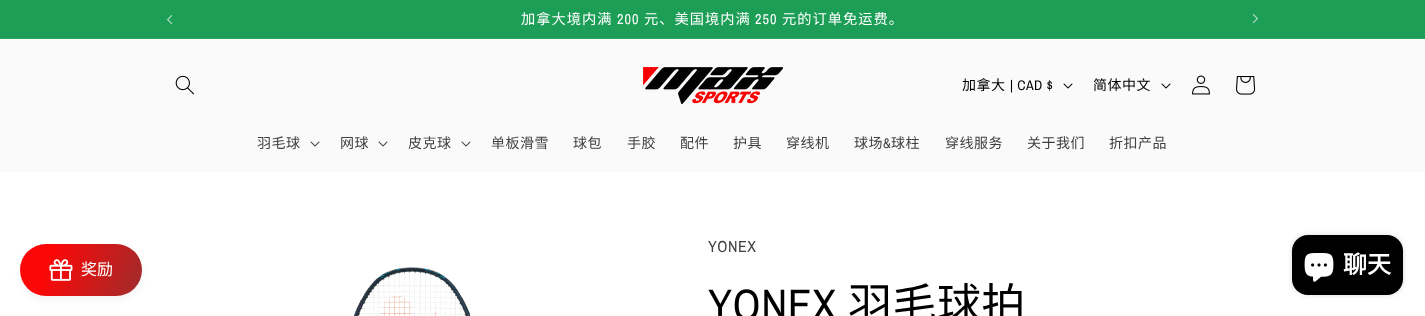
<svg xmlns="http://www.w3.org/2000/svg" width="1425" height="316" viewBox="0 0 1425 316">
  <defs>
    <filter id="blur1" x="-50%" y="-200%" width="200%" height="500%"><feGaussianBlur stdDeviation="4"/></filter>
    <linearGradient id="g1" gradientUnits="userSpaceOnUse" x1="19" y1="248" x2="193" y2="310"><stop offset="0.17" stop-color="#fc0707"/><stop offset="1" stop-color="#6e4040"/></linearGradient>
    <filter id="blur2" x="-50%" y="-200%" width="200%" height="500%"><feGaussianBlur stdDeviation="2.5"/></filter>
  </defs>
  <rect width="100%" height="100%" fill="#ffffff"/>
  <rect x="0" y="0" width="1425" height="38" fill="#1c9e57"/>
  <rect x="0" y="38" width="1425" height="1" fill="#2ea664"/>
  <image x="167" y="15" width="5" height="9" href="img1.png"/>
  <text x="521" y="24" font-family="Noto Sans CJK SC" font-size="14.25" letter-spacing="1" fill="#ffffff">加拿大境内满</text>
  <text x="617" y="24" font-family="Archivo Narrow" font-size="14.25" letter-spacing="1" fill="#ffffff">200</text>
  <text x="644" y="24" font-family="Noto Sans CJK SC" font-size="14.25" letter-spacing="1" fill="#ffffff">元、美国境内满</text>
  <text x="755" y="24" font-family="Archivo Narrow" font-size="14.25" letter-spacing="1" fill="#ffffff">250</text>
  <text x="782" y="24" font-family="Noto Sans CJK SC" font-size="14.25" letter-spacing="1" fill="#ffffff">元的订单免运费。</text>
  <image x="1253" y="14" width="5" height="9" href="img2.png"/>
  <rect x="0" y="39" width="1425" height="133" fill="#fafafa"/>
  <image x="175" y="75" width="19" height="20" href="img3.png"/>
  <image x="643" y="67" width="140" height="37" href="img4.png"/>
  <text x="962" y="90" font-family="Noto Sans CJK SC" font-size="14" letter-spacing="0.5" fill="#000000">加拿大</text>
  <text x="1010" y="90" font-family="Archivo Narrow" font-size="14" letter-spacing="0.5" fill="#000000">| CAD $</text>
  <image x="1063" y="83" width="10" height="6" href="img5.png"/>
  <text x="1093" y="90" font-family="Noto Sans CJK SC" font-size="14" letter-spacing="0.5" fill="#000000">简体中文</text>
  <image x="1161" y="83" width="10" height="6" href="img5.png"/>
  <image x="1192" y="75" width="18" height="20" href="img6.png"/>
  <image x="1236" y="76" width="20" height="19" href="img7.png"/>
  <text x="257" y="148" font-family="Noto Sans CJK SC" font-size="14" letter-spacing="0.5" fill="#404040">羽毛球</text>
  <image x="310" y="141" width="10" height="6" href="img8.png"/>
  <text x="340" y="148" font-family="Noto Sans CJK SC" font-size="14" letter-spacing="0.5" fill="#404040">网球</text>
  <image x="378" y="141" width="10" height="6" href="img8.png"/>
  <text x="408" y="148" font-family="Noto Sans CJK SC" font-size="14" letter-spacing="0.5" fill="#404040">皮克球</text>
  <image x="461" y="141" width="10" height="6" href="img8.png"/>
  <text x="491" y="148" font-family="Noto Sans CJK SC" font-size="14" letter-spacing="0.5" fill="#404040">单板滑雪</text>
  <text x="573" y="148" font-family="Noto Sans CJK SC" font-size="14" letter-spacing="0.5" fill="#404040">球包</text>
  <text x="627" y="148" font-family="Noto Sans CJK SC" font-size="14" letter-spacing="0.5" fill="#404040">手胶</text>
  <text x="680" y="148" font-family="Noto Sans CJK SC" font-size="14" letter-spacing="0.5" fill="#404040">配件</text>
  <text x="733" y="148" font-family="Noto Sans CJK SC" font-size="14" letter-spacing="0.5" fill="#404040">护具</text>
  <text x="786" y="148" font-family="Noto Sans CJK SC" font-size="14" letter-spacing="0.5" fill="#404040">穿线机</text>
  <text x="854" y="148" font-family="Noto Sans CJK SC" font-size="14" letter-spacing="0.5" fill="#404040">球场</text>
  <text x="883" y="148" font-family="Archivo Narrow" font-size="14" letter-spacing="0.5" fill="#404040">&amp;</text>
  <text x="891" y="148" font-family="Noto Sans CJK SC" font-size="14" letter-spacing="0.5" fill="#404040">球柱</text>
  <text x="945" y="148" font-family="Noto Sans CJK SC" font-size="14" letter-spacing="0.5" fill="#404040">穿线服务</text>
  <text x="1027" y="148" font-family="Noto Sans CJK SC" font-size="14" letter-spacing="0.5" fill="#404040">关于我们</text>
  <text x="1109" y="148" font-family="Noto Sans CJK SC" font-size="14" letter-spacing="0.5" fill="#404040">折扣产品</text>
  <rect x="22" y="250" width="118" height="48" rx="24" fill="#444444" fill-opacity="0.08" filter="url(#blur1)"/>
  <rect x="20" y="244" width="122" height="52" rx="26" fill="url(#g1)"/>
  <image x="49" y="259" width="24" height="22" href="img9.png"/>
  <text x="81" y="275" font-family="Noto Sans CJK SC" font-size="16" fill="#ffffff">奖励</text>
  <image x="354" y="267" width="117" height="49" href="img10.png"/>
  <text x="708" y="252" font-family="Archivo Narrow" font-size="16" letter-spacing="0.5" fill="#404040">YONEX</text>
  <text x="708" y="320" font-family="Archivo Narrow" font-size="44" letter-spacing="0.5" fill="#000000">YONEX</text>
  <text x="848" y="320" font-family="Noto Sans CJK SC" font-size="44" letter-spacing="0.5" fill="#000000">羽毛球拍</text>
  <rect x="1292" y="235" width="111" height="60" rx="16" fill="#000000" fill-opacity="0.15" filter="url(#blur2)"/>
  <rect x="1292" y="235" width="111" height="60" rx="16" fill="#000000"/>
  <image x="1304" y="253" width="30" height="29" href="img11.png"/>
  <text x="1343" y="273" font-family="Noto Sans CJK SC" font-size="24" font-weight="bold" fill="#ffffff">聊天</text>
</svg>
